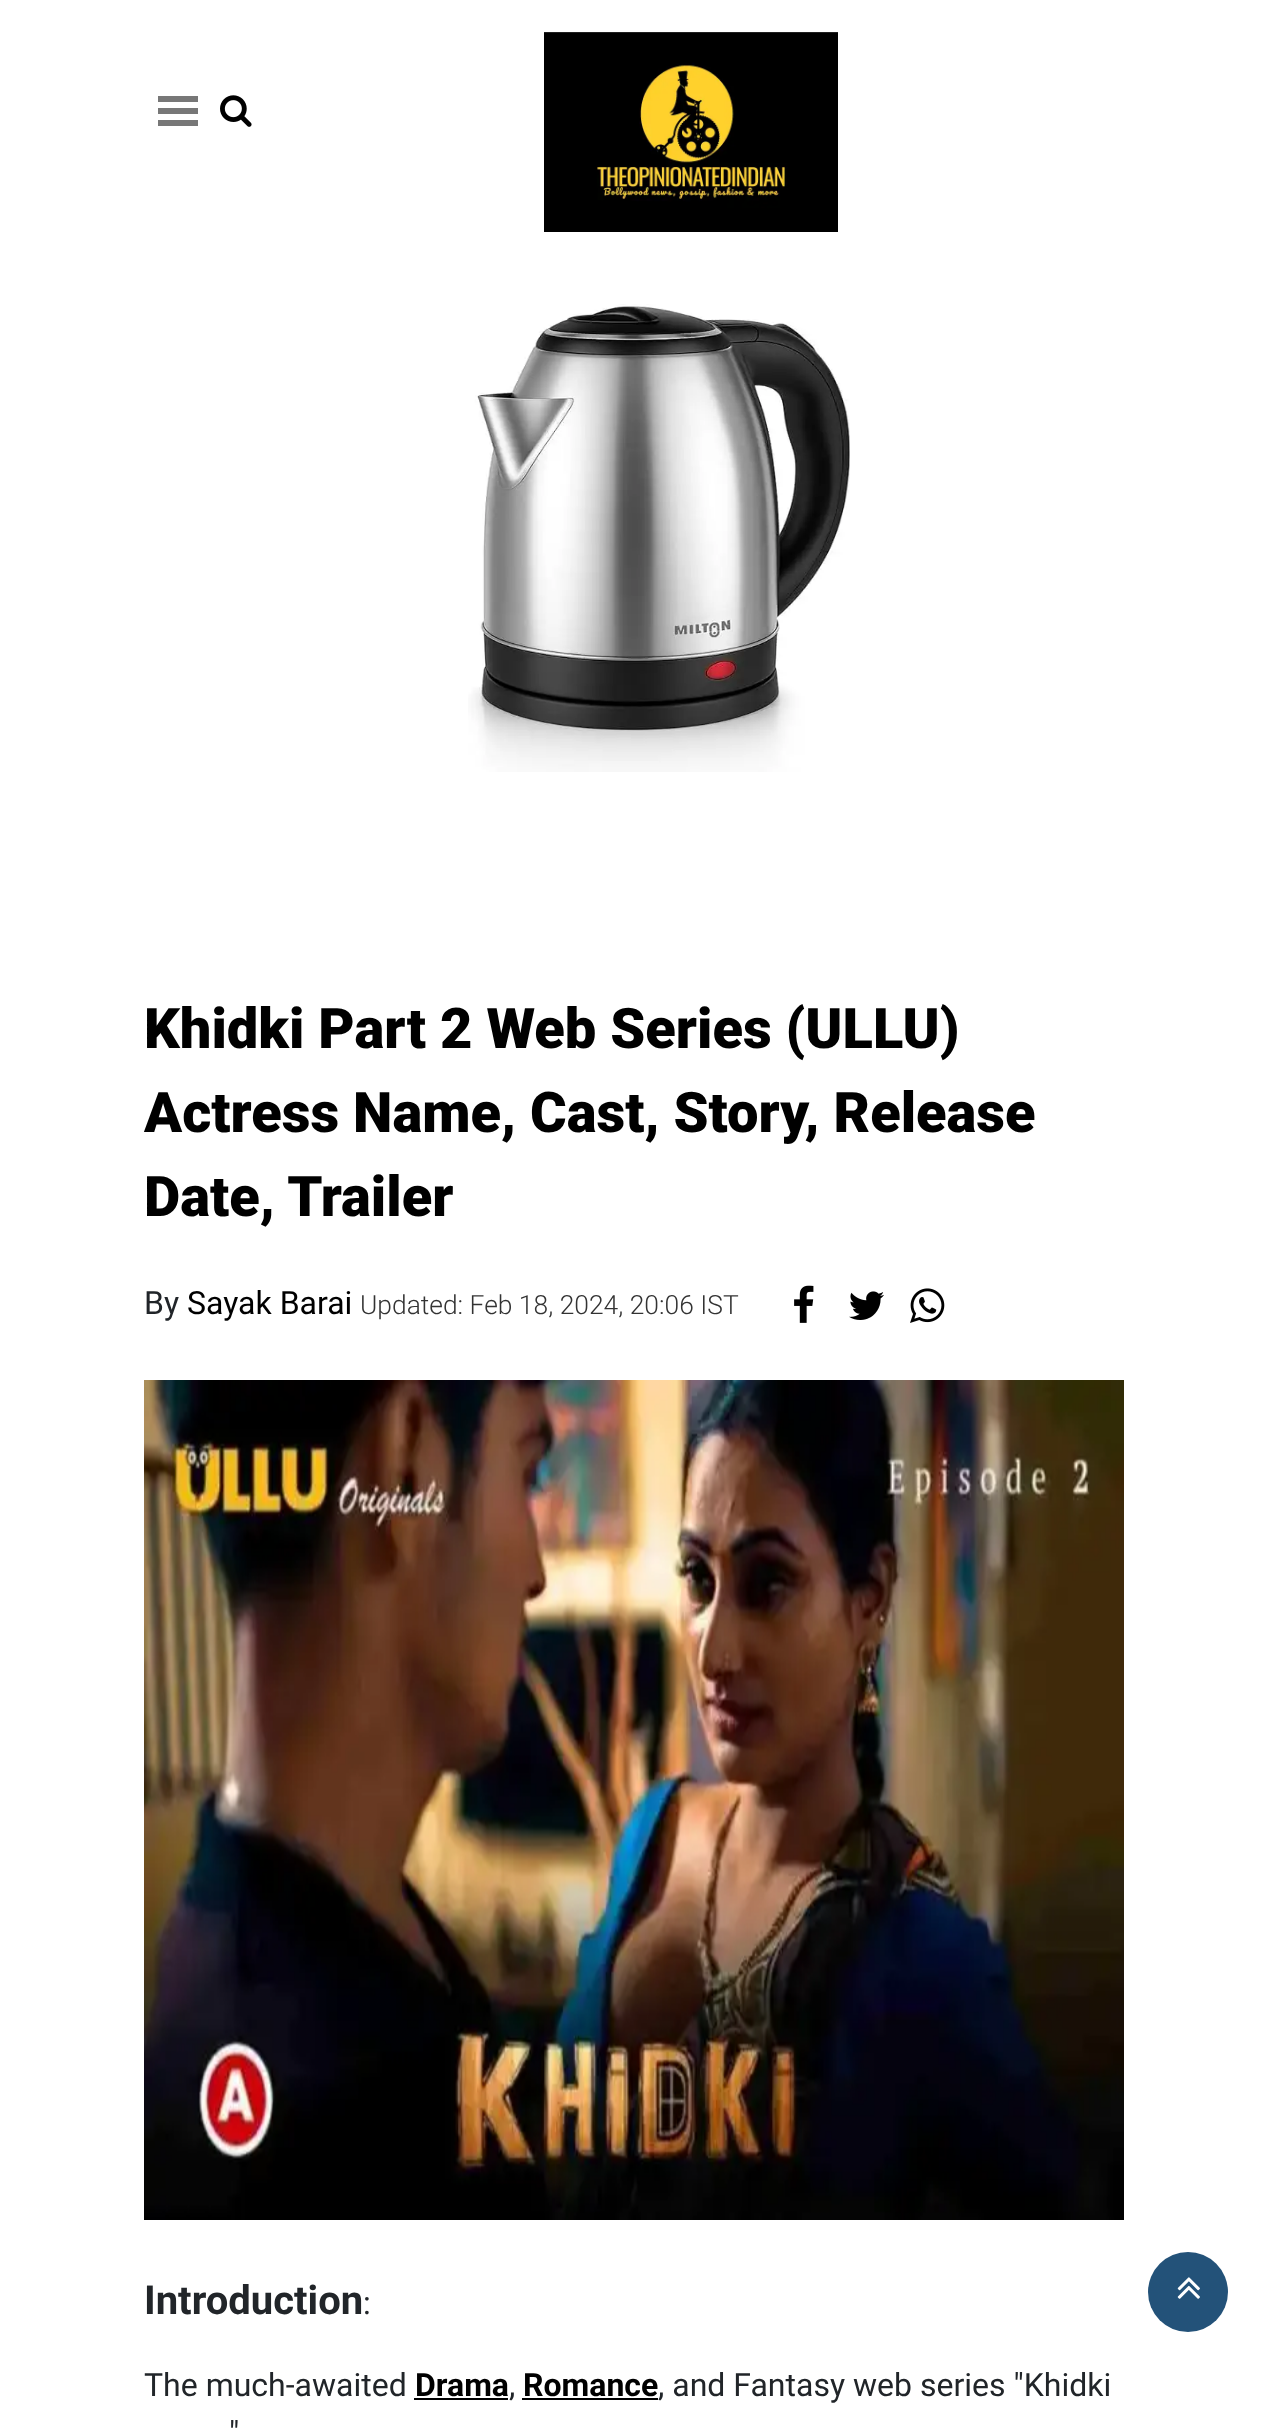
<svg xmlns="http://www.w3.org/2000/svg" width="1267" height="2429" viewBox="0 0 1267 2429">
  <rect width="100%" height="100%" fill="#ffffff"/>
  <rect x="158" y="96" width="40" height="6" fill="#777777"/>
  <rect x="158" y="108" width="40" height="6" fill="#777777"/>
  <rect x="158" y="120" width="40" height="6" fill="#777777"/>
  <image x="220" y="95" width="32" height="32" href="img1.png"/>
  <image x="544" y="32" width="294" height="200" href="img2.png"/>
  <image x="468" y="304" width="382" height="468" href="img3.png"/>
  <text x="144" y="1048" font-family="Roboto" font-size="56" font-weight="900" fill="#000000">Khidki Part 2 Web Series (ULLU)</text>
  <text x="144" y="1132" font-family="Roboto" font-size="56" font-weight="900" fill="#000000">Actress Name, Cast, Story, Release</text>
  <text x="144" y="1216" font-family="Roboto" font-size="56" font-weight="900" fill="#000000">Date, Trailer</text>
  <text x="144" y="1314" font-family="Roboto" font-size="32" fill="#212529">By</text>
  <text x="187" y="1314" font-family="Roboto" font-size="32" fill="#000000">Sayak Barai</text>
  <text x="360" y="1314" font-family="Roboto" font-size="26.4" font-weight="300" fill="#333333">Updated: Feb 18, 2024, 20:06 IST</text>
  <image x="794" y="1285" width="20" height="38" href="img4.png"/>
  <image x="849" y="1291" width="35" height="29" href="img5.png"/>
  <image x="910" y="1288" width="35" height="35" href="img6.png"/>
  <image x="144" y="1380" width="980" height="840" href="img7.png"/>
  <text x="144" y="2314" font-family="Roboto" font-size="40" font-weight="bold" fill="#212529">Introduction</text>
  <text x="363" y="2314" font-family="Roboto" font-size="32" fill="#212529">:</text>
  <text x="144" y="2396" font-family="Roboto" font-size="32" fill="#212529">The much-awaited</text>
  <text x="415" y="2396" font-family="Roboto" font-size="32" font-weight="bold" fill="#000000">Drama</text>
  <text x="509" y="2396" font-family="Roboto" font-size="32" fill="#212529">,</text>
  <rect x="414" y="2398" width="94" height="2" fill="#000000"/>
  <rect x="522" y="2398" width="136" height="2" fill="#000000"/>
  <text x="523" y="2396" font-family="Roboto" font-size="32" font-weight="bold" fill="#000000">Romance</text>
  <text x="658" y="2396" font-family="Roboto" font-size="32" fill="#212529">, and Fantasy web series "Khidki</text>
  <text x="229" y="2444" font-family="Roboto" font-size="32" fill="#212529">"</text>
  <circle cx="1188" cy="2292" r="40" fill="#235279"/>
  <image x="1177" y="2277" width="23" height="22" href="img8.png"/>
</svg>
